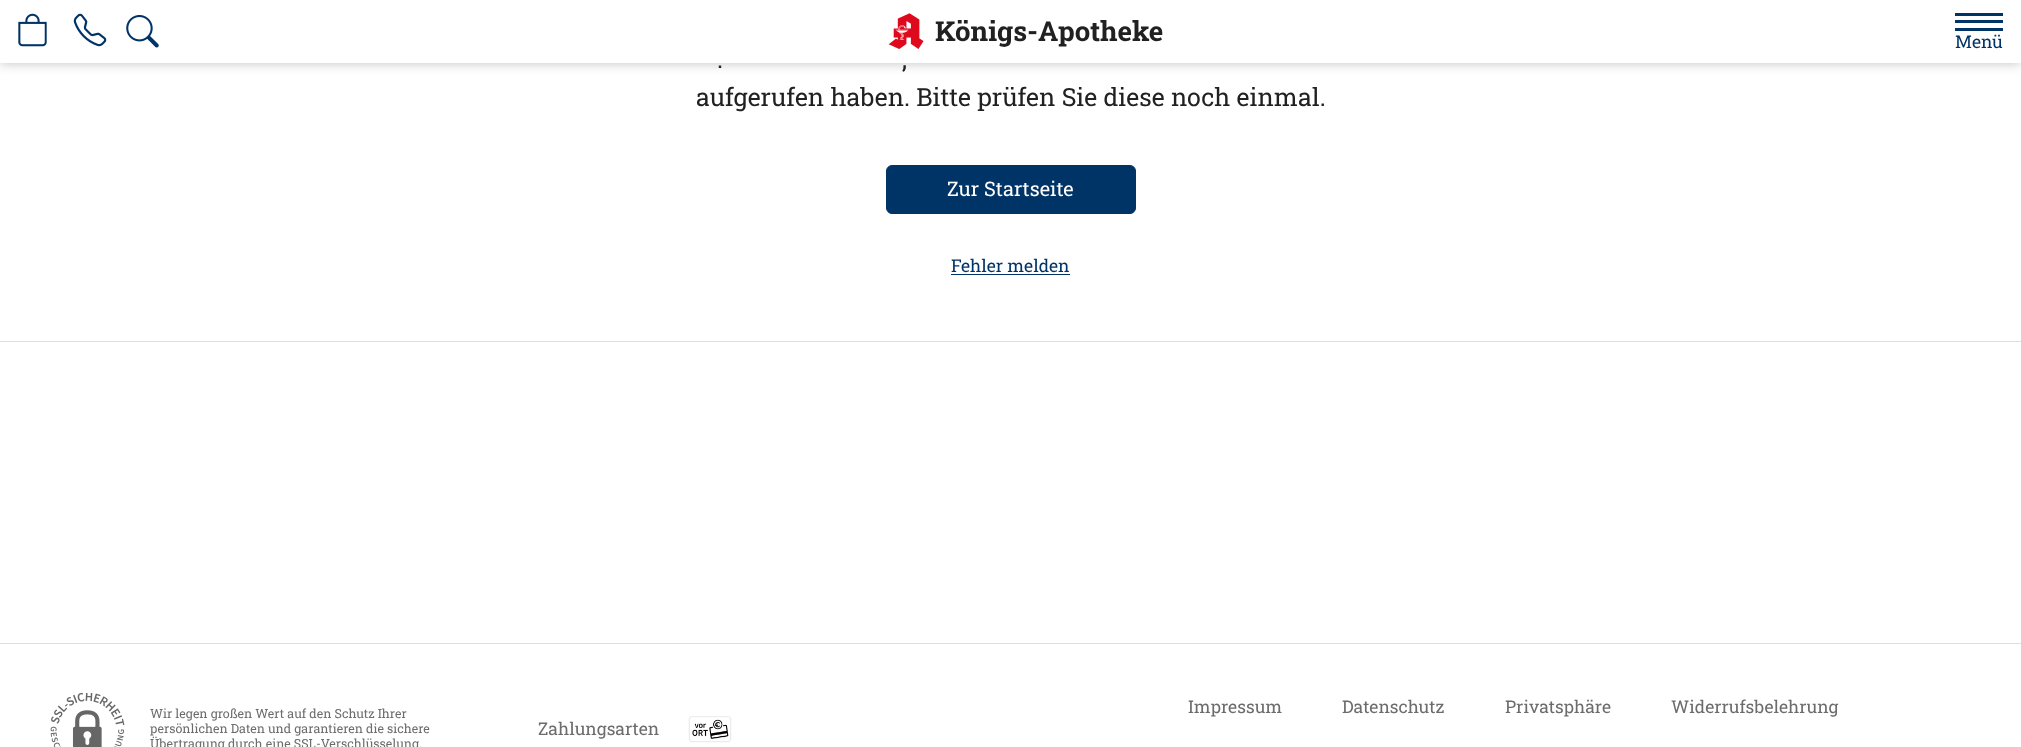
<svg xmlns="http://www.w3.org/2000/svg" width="2021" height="747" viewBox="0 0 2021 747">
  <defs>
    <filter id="blur1" x="-50%" y="-200%" width="200%" height="500%"><feGaussianBlur stdDeviation="6"/></filter>
  </defs>
  <rect width="100%" height="100%" fill="#ffffff"/>
  <rect x="0" y="0" width="2021" height="63" fill="#000000" fill-opacity="0.25" filter="url(#blur1)"/>
  <rect x="0" y="0" width="2021" height="63" fill="#ffffff"/>
  <image x="888" y="13" width="36" height="36" href="img1.png"/>
  <text x="935" y="41" font-family="Roboto Slab" font-size="27.5" font-weight="bold" fill="#212121">Königs-Apotheke</text>
  <image x="18" y="13" width="29" height="34" href="img2.png"/>
  <image x="73" y="13" width="34" height="34" href="img3.png"/>
  <image x="126" y="15" width="33" height="33" href="img4.png"/>
  <rect x="1955" y="20" width="48" height="3" fill="#003366"/>
  <rect x="1955" y="13" width="48" height="3" fill="#003366"/>
  <rect x="1955" y="28" width="48" height="3" fill="#003366"/>
  <text x="1955" y="48" font-family="Roboto Slab" font-size="17.5" fill="#003366">Menü</text>
  <text x="717" y="68" font-family="Roboto Slab" font-size="25" fill="#212121">.</text>
  <text x="902" y="68" font-family="Roboto Slab" font-size="25" fill="#212121">,</text>
  <text x="696" y="106" font-family="Roboto Slab" font-size="25" fill="#212121">aufgerufen haben. Bitte prüfen Sie diese noch einmal.</text>
  <rect x="886.5" y="165.5" width="249" height="48" rx="5.5" fill="#003366" stroke="#003366"/>
  <text x="947" y="196" font-family="Roboto Slab" font-size="20" fill="#ffffff">Zur Startseite</text>
  <text x="951" y="272" font-family="Roboto Slab" font-size="17.5" fill="#003366">Fehler melden</text>
  <rect x="951" y="274" width="119" height="1" fill="#003366"/>
  <rect x="0" y="341" width="2021" height="1" fill="#dedede"/>
  <rect x="0" y="643" width="2021" height="1" fill="#dedede"/>
  <image x="50" y="693" width="75" height="54" href="img5.png"/>
  <text x="150" y="718" font-family="Roboto Slab" font-size="12.5" fill="#6c6c6c">Wir legen großen Wert auf den Schutz Ihrer</text>
  <text x="150" y="733" font-family="Roboto Slab" font-size="12.5" fill="#6c6c6c">persönlichen Daten und garantieren die sichere</text>
  <text x="150" y="748" font-family="Roboto Slab" font-size="12.5" fill="#6c6c6c">Übertragung durch eine SSL-Verschlüsselung.</text>
  <text x="538" y="735" font-family="Roboto Slab" font-size="17.5" fill="#6c6c6c">Zahlungsarten</text>
  <image x="688" y="716" width="44" height="27" href="img6.png"/>
  <text x="1188" y="713" font-family="Roboto Slab" font-size="17.5" fill="#6c6c6c">Impressum</text>
  <text x="1342" y="713" font-family="Roboto Slab" font-size="17.5" fill="#6c6c6c">Datenschutz</text>
  <text x="1505" y="713" font-family="Roboto Slab" font-size="17.5" fill="#6c6c6c">Privatsphäre</text>
  <text x="1671" y="713" font-family="Roboto Slab" font-size="17.5" fill="#6c6c6c">Widerrufsbelehrung</text>
</svg>
